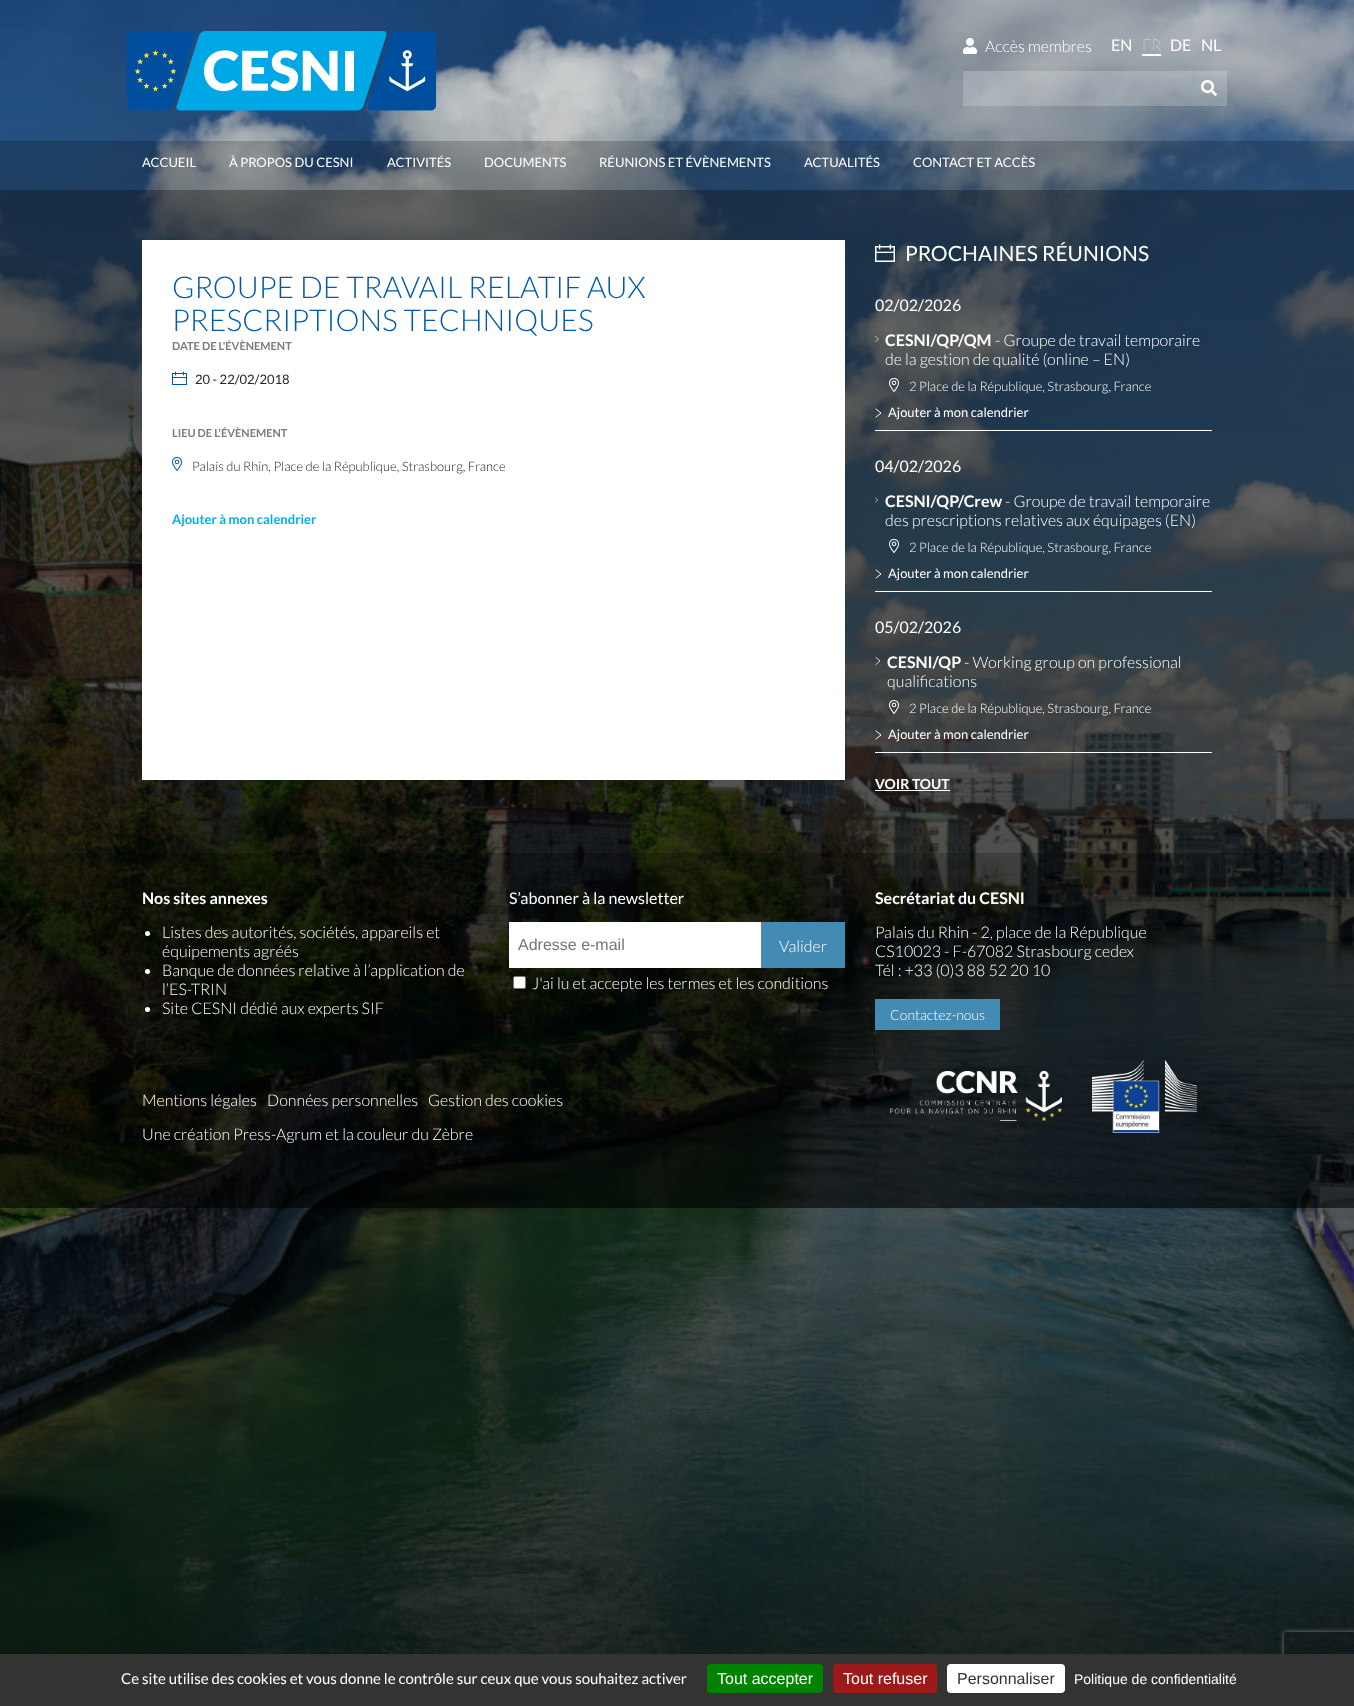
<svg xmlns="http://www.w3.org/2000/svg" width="1354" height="1706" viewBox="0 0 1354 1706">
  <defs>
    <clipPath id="clip1"><path d="M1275 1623H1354V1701H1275ZM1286 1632H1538C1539 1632 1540 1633 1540 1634V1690C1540 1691 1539 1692 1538 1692H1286C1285 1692 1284 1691 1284 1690V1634C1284 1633 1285 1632 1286 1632Z" clip-rule="evenodd"/></clipPath>
    <filter id="blur1" x="-50%" y="-200%" width="200%" height="500%"><feGaussianBlur stdDeviation="2.5"/></filter>
  </defs>
  <rect width="100%" height="100%" fill="#ffffff"/>
  <image x="0" y="0" width="1354" height="1654" href="img1.png"/>
  <rect x="0" y="0" width="1354" height="190" fill="#000000" fill-opacity="0.1"/>
  <image x="127" y="31" width="310" height="80" href="img2.png"/>
  <image x="963" y="38" width="14" height="16" href="img3.png"/>
  <text x="985" y="52" font-family="Lato" font-size="16" font-weight="300" fill="#ffffff">Accès membres</text>
  <text x="1111" y="51" font-family="Lato" font-size="16" fill="#ffffff">EN</text>
  <rect x="1142" y="54" width="19" height="2" fill="#ffffff"/>
  <text x="1142" y="51" font-family="Lato" font-size="16" font-weight="100" fill="#ffffff">FR</text>
  <text x="1170" y="51" font-family="Lato" font-size="16" fill="#ffffff">DE</text>
  <text x="1201" y="51" font-family="Lato" font-size="16" fill="#ffffff">NL</text>
  <rect x="963" y="71" width="228" height="35" fill="#ffffff" fill-opacity="0.2"/>
  <rect x="1191" y="71" width="36" height="35" fill="#ffffff" fill-opacity="0.2"/>
  <image x="1201" y="80" width="16" height="16" href="img4.png"/>
  <rect x="0" y="141" width="1354" height="49" fill="#000000" fill-opacity="0.2"/>
  <text x="142" y="167" font-family="Lato" font-size="13" fill="#ffffff">ACCUEIL</text>
  <text x="229" y="167" font-family="Lato" font-size="13" fill="#ffffff">À PROPOS DU CESNI</text>
  <text x="387" y="167" font-family="Lato" font-size="13" fill="#ffffff">ACTIVITÉS</text>
  <text x="484" y="167" font-family="Lato" font-size="13" fill="#ffffff">DOCUMENTS</text>
  <text x="599" y="167" font-family="Lato" font-size="13" fill="#ffffff">RÉUNIONS ET ÉVÈNEMENTS</text>
  <text x="804" y="167" font-family="Lato" font-size="13" fill="#ffffff">ACTUALITÉS</text>
  <text x="913" y="167" font-family="Lato" font-size="13" fill="#ffffff">CONTACT ET ACCÈS</text>
  <rect x="0" y="190" width="1354" height="663" fill="#000000" fill-opacity="0.5"/>
  <rect x="142" y="240" width="703" height="540" fill="#ffffff"/>
  <text x="172" y="298" font-family="Lato" font-size="30" font-weight="300" fill="#005aab">GROUPE DE TRAVAIL RELATIF AUX</text>
  <text x="172" y="331" font-family="Lato" font-size="30" font-weight="300" fill="#005aab">PRESCRIPTIONS TECHNIQUES</text>
  <text x="172" y="350" font-family="Lato" font-size="11" font-weight="bold" fill="#7c7c7c">DATE DE L'ÉVÈNEMENT</text>
  <image x="172" y="371" width="15" height="14" href="img5.png"/>
  <text x="195" y="384" font-family="Lato" font-size="13" fill="#242424">20 - 22/02/2018</text>
  <text x="172" y="437" font-family="Lato" font-size="11" font-weight="bold" fill="#7c7c7c">LIEU DE L'ÉVÈNEMENT</text>
  <image x="172" y="457" width="10" height="15" href="img6.png"/>
  <text x="192" y="471" font-family="Lato" font-size="13" font-weight="300" fill="#242424">Palais du Rhin, Place de la République, Strasbourg, France</text>
  <text x="172" y="524" font-family="Lato" font-size="13" font-weight="bold" fill="#00afeb">Ajouter à mon calendrier</text>
  <image x="875" y="244" width="20" height="18" href="img7.png"/>
  <text x="905" y="261" font-family="Lato" font-size="21" fill="#ffffff">PROCHAINES RÉUNIONS</text>
  <rect x="875" y="430" width="337" height="1" fill="#ffffff"/>
  <text x="875" y="311" font-family="Lato" font-size="16" fill="#ffffff">02/02/2026</text>
  <path d="M875.5 336.5L878.5 339L875.5 341.5" fill="none" stroke="#ffffff" stroke-width="0.6" stroke-linecap="round" stroke-linejoin="round"/>
  <text x="885" y="346" font-family="Lato" font-size="16" font-weight="bold" fill="#ffffff">CESNI/QP/QM</text>
  <text x="995" y="346" font-family="Lato" font-size="16" font-weight="300" fill="#ffffff">- Groupe de travail temporaire</text>
  <text x="885" y="365" font-family="Lato" font-size="16" font-weight="300" fill="#ffffff">de la gestion de qualité (online – EN)</text>
  <image x="889" y="378" width="10" height="15" href="img8.png"/>
  <text x="909" y="391" font-family="Lato" font-size="13" font-weight="300" fill="#ffffff">2 Place de la République, Strasbourg, France</text>
  <path d="M876 409L881 413L876 417" fill="none" stroke="#ffffff" stroke-linecap="round" stroke-linejoin="round"/>
  <text x="888" y="417" font-family="Lato" font-size="13" fill="#ffffff">Ajouter à mon calendrier</text>
  <rect x="875" y="591" width="337" height="1" fill="#ffffff"/>
  <text x="875" y="472" font-family="Lato" font-size="16" fill="#ffffff">04/02/2026</text>
  <path d="M875.5 498L878 500L875.5 502" fill="none" stroke="#ffffff" stroke-width="0.5" stroke-linecap="round" stroke-linejoin="round"/>
  <text x="885" y="507" font-family="Lato" font-size="16" font-weight="bold" fill="#ffffff">CESNI/QP/Crew</text>
  <text x="1005" y="507" font-family="Lato" font-size="16" font-weight="300" fill="#ffffff">- Groupe de travail temporaire</text>
  <text x="885" y="526" font-family="Lato" font-size="16" font-weight="300" fill="#ffffff">des prescriptions relatives aux équipages (EN)</text>
  <image x="889" y="539" width="10" height="15" href="img9.png"/>
  <text x="909" y="552" font-family="Lato" font-size="13" font-weight="300" fill="#ffffff">2 Place de la République, Strasbourg, France</text>
  <path d="M876 570L881 574L876 578" fill="none" stroke="#ffffff" stroke-linecap="round" stroke-linejoin="round"/>
  <text x="888" y="578" font-family="Lato" font-size="13" fill="#ffffff">Ajouter à mon calendrier</text>
  <rect x="875" y="752" width="337" height="1" fill="#ffffff"/>
  <text x="875" y="633" font-family="Lato" font-size="16" fill="#ffffff">05/02/2026</text>
  <path d="M876 657.5L880 661L876 664.5" fill="none" stroke="#ffffff" stroke-width="0.8" stroke-linecap="round" stroke-linejoin="round"/>
  <text x="887" y="668" font-family="Lato" font-size="16" font-weight="bold" fill="#ffffff">CESNI/QP</text>
  <text x="964" y="668" font-family="Lato" font-size="16" font-weight="300" fill="#ffffff">- Working group on professional</text>
  <text x="887" y="687" font-family="Lato" font-size="16" font-weight="300" fill="#ffffff">qualifications</text>
  <image x="889" y="700" width="10" height="15" href="img10.png"/>
  <text x="909" y="713" font-family="Lato" font-size="13" font-weight="300" fill="#ffffff">2 Place de la République, Strasbourg, France</text>
  <path d="M876 731L881 735L876 739" fill="none" stroke="#ffffff" stroke-linecap="round" stroke-linejoin="round"/>
  <text x="888" y="739" font-family="Lato" font-size="13" fill="#ffffff">Ajouter à mon calendrier</text>
  <text x="875" y="789" font-family="Lato" font-size="14" font-weight="bold" fill="#ffffff">VOIR TOUT</text>
  <rect x="875" y="790" width="75" height="1" fill="#ffffff"/>
  <rect x="0" y="853" width="1354" height="355" fill="#000000" fill-opacity="0.6"/>
  <text x="142" y="904" font-family="Lato" font-size="16" font-weight="bold" fill="#ffffff">Nos sites annexes</text>
  <circle cx="147.5" cy="933.5" r="2.5" fill="#ffffff"/>
  <text x="162" y="938" font-family="Lato" font-size="16" font-weight="300" fill="#ffffff">Listes des autorités, sociétés, appareils et</text>
  <text x="162" y="957" font-family="Lato" font-size="16" font-weight="300" fill="#ffffff">équipements agréés</text>
  <circle cx="147.5" cy="971.5" r="2.5" fill="#ffffff"/>
  <text x="162" y="976" font-family="Lato" font-size="16" font-weight="300" fill="#ffffff">Banque de données relative à l’application de</text>
  <text x="162" y="995" font-family="Lato" font-size="16" font-weight="300" fill="#ffffff">l’ES-TRIN</text>
  <circle cx="147.5" cy="1009.5" r="2.5" fill="#ffffff"/>
  <text x="162" y="1014" font-family="Lato" font-size="16" font-weight="300" fill="#ffffff">Site CESNI dédié aux experts SIF</text>
  <text x="509" y="904" font-family="Lato" font-size="16" fill="#ffffff">S’abonner à la newsletter</text>
  <rect x="509" y="922" width="252" height="46" fill="#ffffff"/>
  <text x="518" y="950" font-family="Liberation Sans" font-size="16" fill="#757575">Adresse e-mail</text>
  <rect x="761" y="922" width="84" height="46" fill="#438bb3"/>
  <text x="779" y="952" font-family="Lato" font-size="16" font-weight="300" fill="#ffffff">Valider</text>
  <rect x="513.5" y="976.5" width="12" height="12" rx="1.5" fill="#ffffff" stroke="#767676"/>
  <text x="532" y="989" font-family="Lato" font-size="16" font-weight="300" fill="#ffffff">J'ai lu et accepte les termes et les conditions</text>
  <text x="875" y="904" font-family="Lato" font-size="16" font-weight="bold" fill="#ffffff">Secrétariat du CESNI</text>
  <text x="875" y="938" font-family="Lato" font-size="16" font-weight="300" fill="#ffffff">Palais du Rhin - 2, place de la République</text>
  <text x="875" y="957" font-family="Lato" font-size="16" font-weight="300" fill="#ffffff">CS10023 - F-67082 Strasbourg cedex</text>
  <text x="875" y="976" font-family="Lato" font-size="16" font-weight="300" fill="#ffffff">Tél : +33 (0)3 88 52 20 10</text>
  <rect x="875" y="999" width="125" height="31" fill="#438bb3"/>
  <text x="890" y="1020" font-family="Lato" font-size="14" font-weight="300" fill="#ffffff">Contactez-nous</text>
  <text x="142" y="1106" font-family="Lato" font-size="16" font-weight="300" fill="#ffffff">Mentions légales</text>
  <text x="267" y="1106" font-family="Lato" font-size="16" font-weight="300" fill="#ffffff">Données personnelles</text>
  <text x="428" y="1106" font-family="Lato" font-size="16" font-weight="300" fill="#ffffff">Gestion des cookies</text>
  <text x="142" y="1140" font-family="Lato" font-size="16" font-weight="300" fill="#ffffff">Une création Press-Agrum et la couleur du Zèbre</text>
  <image x="890" y="1071" width="172" height="50" href="img11.png"/>
  <image x="1092" y="1060" width="105" height="73" href="img12.png"/>
  <g clip-path="url(#clip1)">
    <rect x="1284" y="1632" width="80" height="60" rx="2" fill="#808080" filter="url(#blur1)"/>
  </g>
  <rect x="0" y="1654" width="1354" height="52" fill="#333333"/>
  <text x="121" y="1684" font-family="Lato" font-size="15" fill="#ffffff">Ce site utilise des cookies et vous donne le contrôle sur ceux que vous souhaitez activer</text>
  <rect x="707" y="1664" width="116" height="29" rx="4" fill="#008300"/>
  <text x="717" y="1684" font-family="Liberation Sans" font-size="16" fill="#ffffff">Tout accepter</text>
  <rect x="833" y="1664" width="104" height="29" rx="4" fill="#9c1a1a"/>
  <text x="843" y="1684" font-family="Liberation Sans" font-size="16" fill="#ffffff">Tout refuser</text>
  <rect x="947" y="1664" width="118" height="29" rx="4" fill="#ffffff"/>
  <text x="957" y="1684" font-family="Liberation Sans" font-size="16" fill="#333333">Personnaliser</text>
  <text x="1074" y="1684" font-family="Liberation Sans" font-size="14" fill="#ffffff">Politique de confidentialité</text>
</svg>
